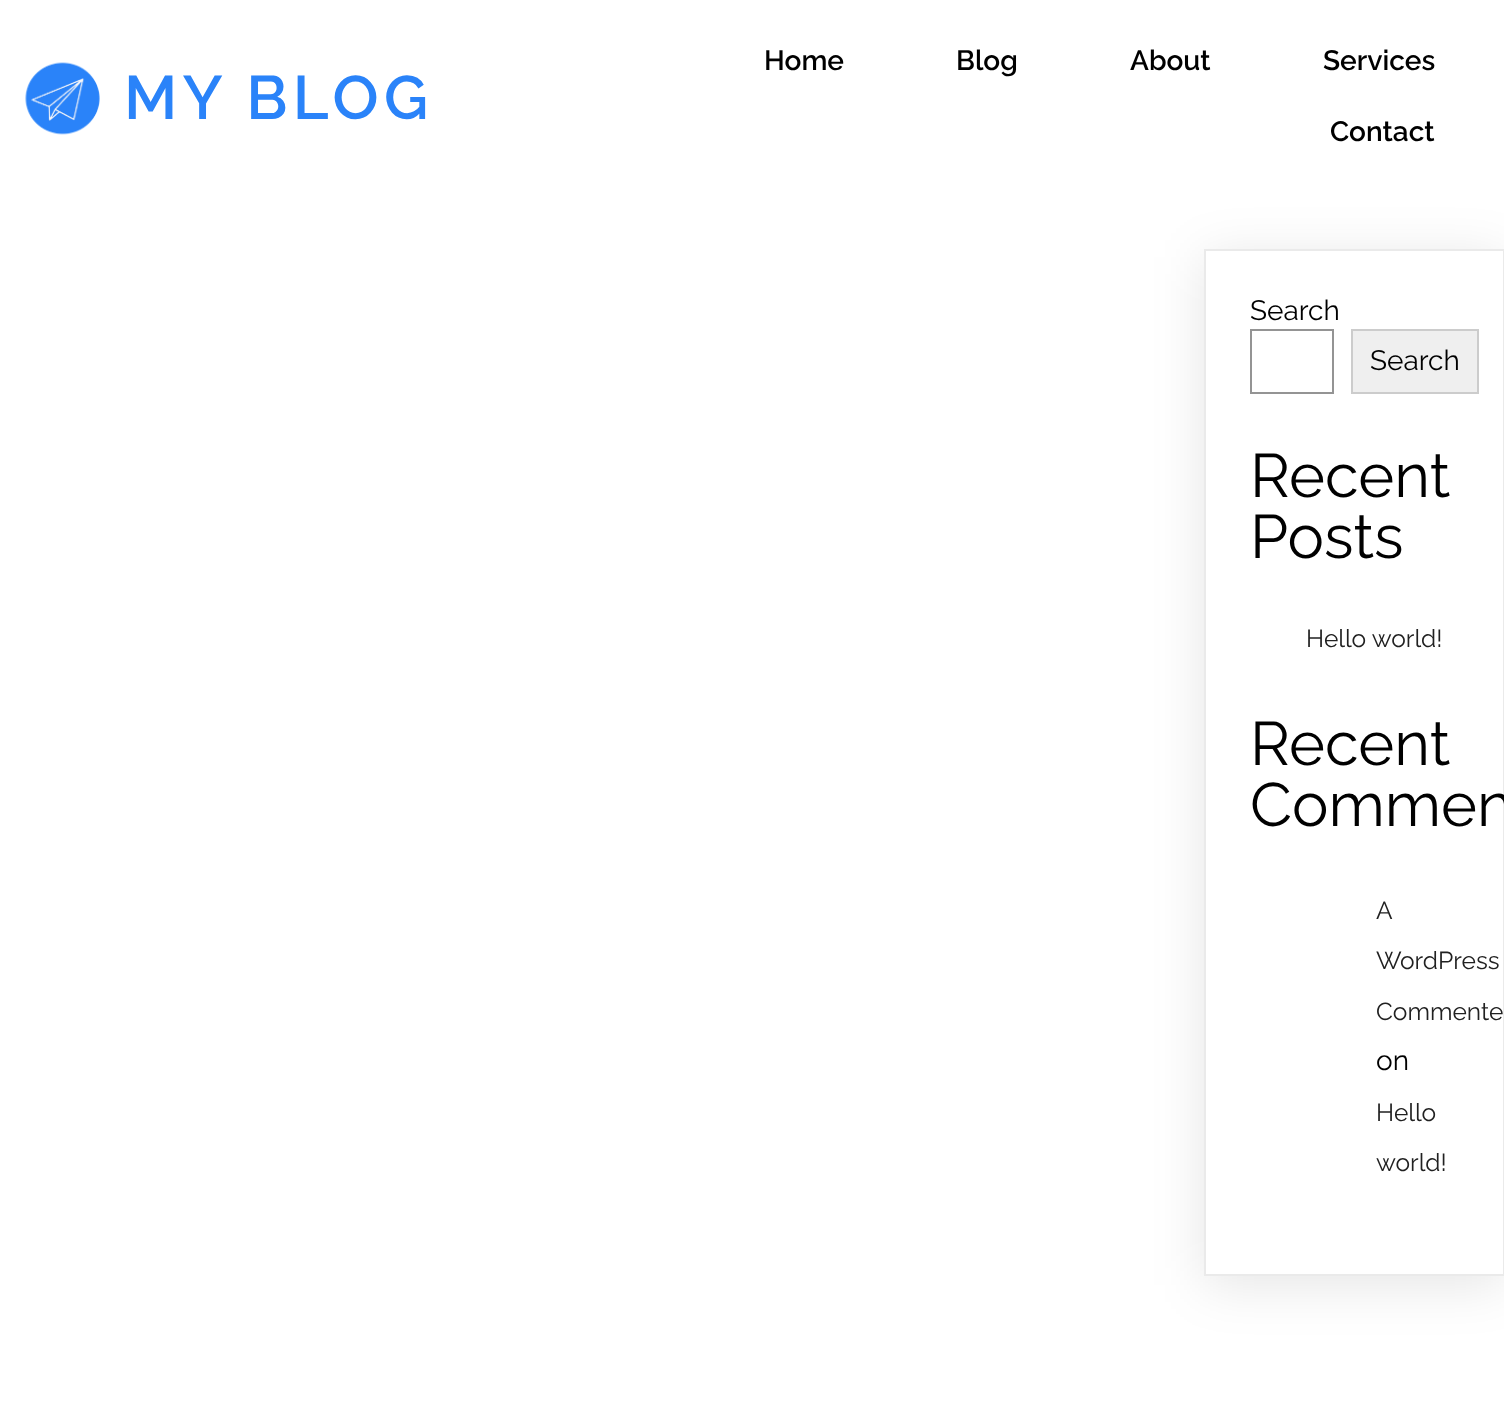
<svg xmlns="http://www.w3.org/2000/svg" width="1504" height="1421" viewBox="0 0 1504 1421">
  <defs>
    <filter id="blur1" x="-50%" y="-200%" width="200%" height="500%"><feGaussianBlur stdDeviation="26"/></filter>
  </defs>
  <rect width="100%" height="100%" fill="#ffffff"/>
  <image x="25" y="62" width="75" height="73" href="img1.png"/>
  <text x="124" y="119" font-family="Raleway" font-size="61.25" font-weight="600" letter-spacing="5.25" fill="#2a83f9">MY BLOG</text>
  <text x="764" y="70" font-family="Raleway" font-size="28" font-weight="600" fill="#000000">Home</text>
  <text x="956" y="70" font-family="Raleway" font-size="28" font-weight="600" fill="#000000">Blog</text>
  <text x="1130" y="70" font-family="Raleway" font-size="28" font-weight="600" fill="#000000">About</text>
  <text x="1323" y="70" font-family="Raleway" font-size="28" font-weight="600" fill="#000000">Services</text>
  <text x="1330" y="141" font-family="Raleway" font-size="28" font-weight="600" fill="#000000">Contact</text>
  <rect x="1204" y="257" width="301" height="1028" fill="#000000" fill-opacity="0.1" filter="url(#blur1)"/>
  <rect x="1205" y="250" width="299" height="1025" fill="#ffffff" stroke="#eaeaea" stroke-width="2"/>
  <text x="1250" y="320" font-family="Raleway" font-size="28" fill="#000000">Search</text>
  <rect x="1251" y="330" width="82" height="63" fill="none" stroke="#949494" stroke-width="2"/>
  <rect x="1352" y="330" width="126" height="63" fill="#efefef" stroke="#cccccc" stroke-width="2"/>
  <text x="1370" y="370" font-family="Raleway" font-size="28" fill="#000000">Search</text>
  <text x="1250" y="497" font-family="Raleway" font-size="61.25" fill="#000000">Recent</text>
  <text x="1250" y="558" font-family="Raleway" font-size="61.25" fill="#000000">Posts</text>
  <text x="1306" y="647" font-family="Raleway" font-size="24.5" fill="#212121">Hello world!</text>
  <text x="1250" y="765" font-family="Raleway" font-size="61.25" fill="#000000">Recent</text>
  <text x="1250" y="826" font-family="Raleway" font-size="61.25" fill="#000000">Commen</text>
  <text x="1376" y="919" font-family="Raleway" font-size="24.5" fill="#212121">A</text>
  <text x="1376" y="969" font-family="Raleway" font-size="24.5" fill="#212121">WordPress</text>
  <text x="1376" y="1020" font-family="Raleway" font-size="24.5" fill="#212121">Commente</text>
  <text x="1376" y="1070" font-family="Raleway" font-size="28" fill="#000000">on</text>
  <text x="1376" y="1121" font-family="Raleway" font-size="24.5" fill="#212121">Hello</text>
  <text x="1376" y="1171" font-family="Raleway" font-size="24.5" fill="#212121">world!</text>
</svg>
